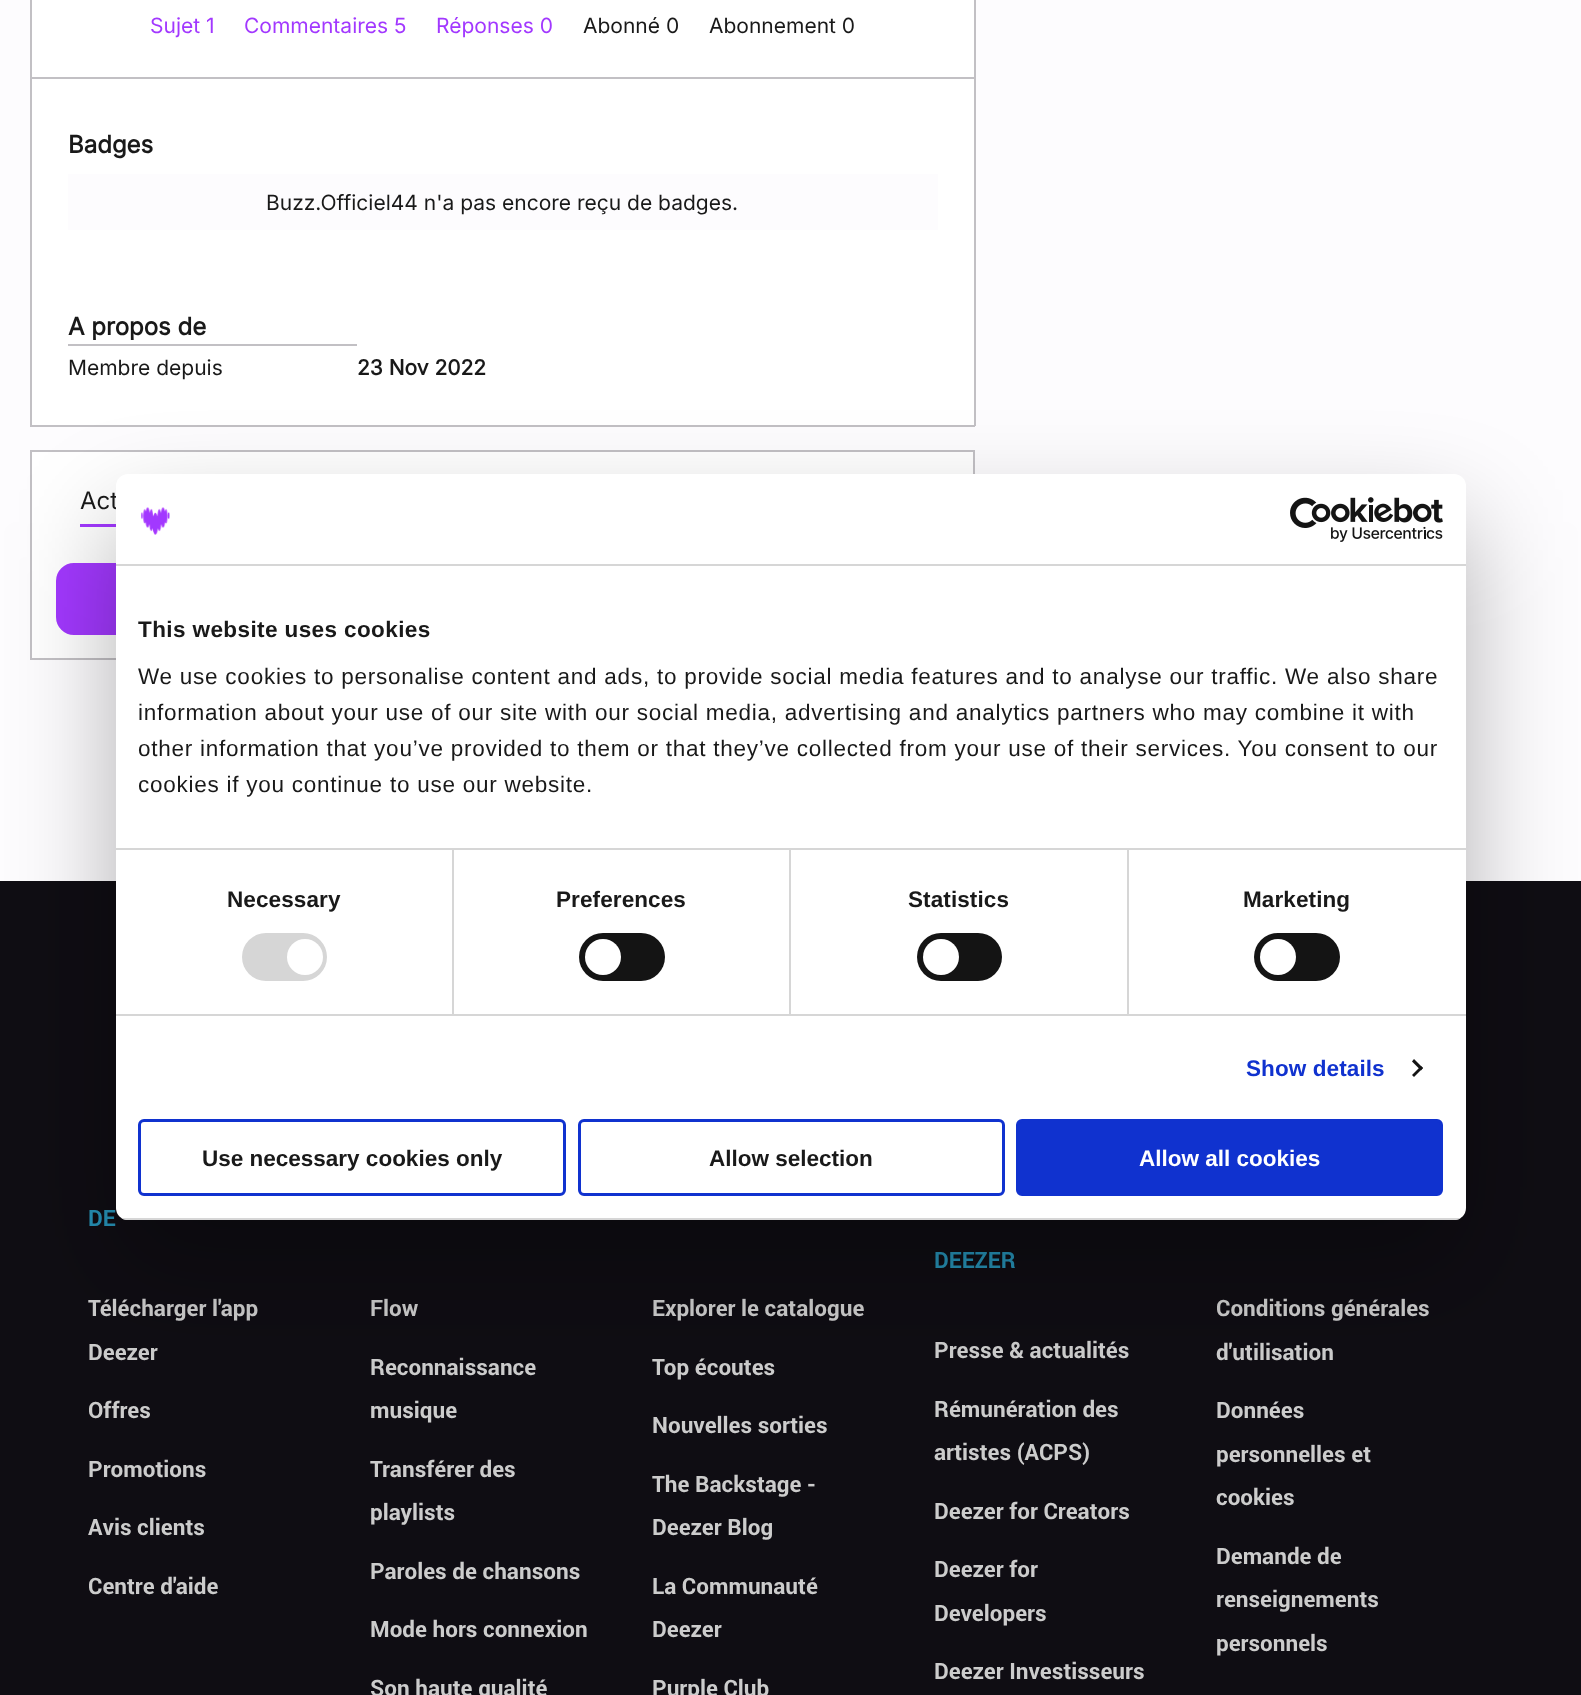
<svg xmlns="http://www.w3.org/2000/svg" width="1581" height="1695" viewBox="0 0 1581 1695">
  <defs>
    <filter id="blur1" x="-50%" y="-200%" width="200%" height="500%"><feGaussianBlur stdDeviation="51"/></filter>
    <clipPath id="clip1"><rect x="116" y="474" width="1350" height="746" rx="12"/></clipPath>
  </defs>
  <rect width="100%" height="100%" fill="#fdfcfe"/>
  <rect x="32" y="0" width="942" height="77" fill="#ffffff"/>
  <rect x="974" y="0" width="2" height="426" fill="#c2c0c4"/>
  <rect x="30" y="78" width="2" height="188" fill="#c2c0c4"/>
  <rect x="30" y="77" width="945" height="2" fill="#c2c0c4"/>
  <rect x="30" y="0" width="2" height="78" fill="#c2c0c4"/>
  <text x="150" y="33" font-family="Inter" font-size="21" fill="#a238ff">Sujet 1</text>
  <text x="244" y="33" font-family="Inter" font-size="21" fill="#a238ff">Commentaires 5</text>
  <text x="436" y="33" font-family="Inter" font-size="21" fill="#a238ff">Réponses 0</text>
  <text x="583" y="33" font-family="Inter" font-size="21" fill="#191919">Abonné 0</text>
  <text x="709" y="33" font-family="Inter" font-size="21" fill="#191919">Abonnement 0</text>
  <rect x="32" y="79" width="942" height="346" fill="#ffffff"/>
  <text x="68" y="153" font-family="Inter" font-size="24" font-weight="bold" fill="#191919">Badges</text>
  <rect x="68" y="174" width="870" height="56" fill="#fdfcfe"/>
  <text x="266" y="210" font-family="Inter" font-size="21" fill="#191919">Buzz.Officiel44 n'a pas encore reçu de badges.</text>
  <rect x="30" y="425" width="945" height="2" fill="#c2c0c4"/>
  <rect x="30" y="266" width="2" height="160" fill="#c2c0c4"/>
  <rect x="68" y="344" width="289" height="2" fill="#c2c0c4"/>
  <text x="68" y="335" font-family="Inter" font-size="24" font-weight="bold" fill="#191919">A propos de</text>
  <text x="68" y="375" font-family="Inter" font-size="21" fill="#191919">Membre depuis</text>
  <text x="357" y="375" font-family="Inter" font-size="21" font-weight="bold" fill="#191919">23 Nov 2022</text>
  <rect x="31" y="451" width="943" height="208" fill="#ffffff" stroke="#c2c0c4" stroke-width="2"/>
  <rect x="80" y="524" width="36" height="3" fill="#a238ff"/>
  <text x="80" y="509" font-family="Inter" font-size="24" fill="#191919">Act</text>
  <rect x="57" y="564" width="892" height="70" rx="17" fill="#a238ff" stroke="#a238ff" stroke-width="2"/>
  <rect x="0" y="881" width="1581" height="814" fill="#0f0d13"/>
  <text x="88" y="1226" font-family="Roboto" font-size="22.5" font-weight="bold" fill="#2692b7">DE</text>
  <text x="88" y="1316" font-family="Roboto" font-size="22.5" font-weight="bold" fill="#cccccc">Télécharger l'app</text>
  <text x="88" y="1360" font-family="Roboto" font-size="22.5" font-weight="bold" fill="#cccccc">Deezer</text>
  <text x="88" y="1418" font-family="Roboto" font-size="22.5" font-weight="bold" fill="#cccccc">Offres</text>
  <text x="88" y="1477" font-family="Roboto" font-size="22.5" font-weight="bold" fill="#cccccc">Promotions</text>
  <text x="88" y="1535" font-family="Roboto" font-size="22.5" font-weight="bold" fill="#cccccc">Avis clients</text>
  <text x="88" y="1594" font-family="Roboto" font-size="22.5" font-weight="bold" fill="#cccccc">Centre d'aide</text>
  <text x="370" y="1316" font-family="Roboto" font-size="22.5" font-weight="bold" fill="#cccccc">Flow</text>
  <text x="370" y="1375" font-family="Roboto" font-size="22.5" font-weight="bold" fill="#cccccc">Reconnaissance</text>
  <text x="370" y="1418" font-family="Roboto" font-size="22.5" font-weight="bold" fill="#cccccc">musique</text>
  <text x="370" y="1477" font-family="Roboto" font-size="22.5" font-weight="bold" fill="#cccccc">Transférer des</text>
  <text x="370" y="1520" font-family="Roboto" font-size="22.5" font-weight="bold" fill="#cccccc">playlists</text>
  <text x="370" y="1579" font-family="Roboto" font-size="22.5" font-weight="bold" fill="#cccccc">Paroles de chansons</text>
  <text x="370" y="1637" font-family="Roboto" font-size="22.5" font-weight="bold" fill="#cccccc">Mode hors connexion</text>
  <text x="370" y="1696" font-family="Roboto" font-size="22.5" font-weight="bold" fill="#cccccc">Son haute qualité</text>
  <text x="652" y="1316" font-family="Roboto" font-size="22.5" font-weight="bold" fill="#cccccc">Explorer le catalogue</text>
  <text x="652" y="1375" font-family="Roboto" font-size="22.5" font-weight="bold" fill="#cccccc">Top écoutes</text>
  <text x="652" y="1433" font-family="Roboto" font-size="22.5" font-weight="bold" fill="#cccccc">Nouvelles sorties</text>
  <text x="652" y="1492" font-family="Roboto" font-size="22.5" font-weight="bold" fill="#cccccc">The Backstage -</text>
  <text x="652" y="1535" font-family="Roboto" font-size="22.5" font-weight="bold" fill="#cccccc">Deezer Blog</text>
  <text x="652" y="1594" font-family="Roboto" font-size="22.5" font-weight="bold" fill="#cccccc">La Communauté</text>
  <text x="652" y="1637" font-family="Roboto" font-size="22.5" font-weight="bold" fill="#cccccc">Deezer</text>
  <text x="652" y="1696" font-family="Roboto" font-size="22.5" font-weight="bold" fill="#cccccc">Purple Club</text>
  <text x="934" y="1268" font-family="Roboto" font-size="22.5" font-weight="bold" fill="#2692b7">DEEZER</text>
  <text x="934" y="1358" font-family="Roboto" font-size="22.5" font-weight="bold" fill="#cccccc">Presse &amp; actualités</text>
  <text x="934" y="1417" font-family="Roboto" font-size="22.5" font-weight="bold" fill="#cccccc">Rémunération des</text>
  <text x="934" y="1460" font-family="Roboto" font-size="22.5" font-weight="bold" fill="#cccccc">artistes (ACPS)</text>
  <text x="934" y="1519" font-family="Roboto" font-size="22.5" font-weight="bold" fill="#cccccc">Deezer for Creators</text>
  <text x="934" y="1577" font-family="Roboto" font-size="22.5" font-weight="bold" fill="#cccccc">Deezer for</text>
  <text x="934" y="1621" font-family="Roboto" font-size="22.5" font-weight="bold" fill="#cccccc">Developers</text>
  <text x="934" y="1679" font-family="Roboto" font-size="22.5" font-weight="bold" fill="#cccccc">Deezer Investisseurs</text>
  <text x="1216" y="1316" font-family="Roboto" font-size="22.5" font-weight="bold" fill="#cccccc">Conditions générales</text>
  <text x="1216" y="1360" font-family="Roboto" font-size="22.5" font-weight="bold" fill="#cccccc">d'utilisation</text>
  <text x="1216" y="1418" font-family="Roboto" font-size="22.5" font-weight="bold" fill="#cccccc">Données</text>
  <text x="1216" y="1462" font-family="Roboto" font-size="22.5" font-weight="bold" fill="#cccccc">personnelles et</text>
  <text x="1216" y="1505" font-family="Roboto" font-size="22.5" font-weight="bold" fill="#cccccc">cookies</text>
  <text x="1216" y="1564" font-family="Roboto" font-size="22.5" font-weight="bold" fill="#cccccc">Demande de</text>
  <text x="1216" y="1607" font-family="Roboto" font-size="22.5" font-weight="bold" fill="#cccccc">renseignements</text>
  <text x="1216" y="1651" font-family="Roboto" font-size="22.5" font-weight="bold" fill="#cccccc">personnels</text>
  <rect x="116" y="522" width="1350" height="746" rx="12" fill="#000000" fill-opacity="0.3" filter="url(#blur1)"/>
  <rect x="116" y="474" width="1350" height="746" rx="12" fill="#ffffff"/>
  <rect x="116" y="564" width="1350" height="2" fill="#d6d6d6"/>
  <image x="141" y="507" width="29" height="28" href="img1.png"/>
  <image x="1290" y="497" width="153" height="45" href="img2.png"/>
  <rect x="452" y="849" width="2" height="165" fill="#d6d6d6"/>
  <rect x="789" y="849" width="2" height="165" fill="#d6d6d6"/>
  <rect x="1127" y="849" width="2" height="165" fill="#d6d6d6"/>
  <rect x="116" y="848" width="1350" height="2" fill="#d6d6d6"/>
  <text x="138" y="637" font-family="Liberation Sans" font-size="22.5" font-weight="bold" letter-spacing="0.4" fill="#191919">This website uses cookies</text>
  <text x="138" y="684" font-family="Liberation Sans" font-size="22.5" letter-spacing="0.75" fill="#191919">We use cookies to personalise content and ads, to provide social media features and to analyse our traffic. We also share</text>
  <text x="138" y="720" font-family="Liberation Sans" font-size="22.5" letter-spacing="0.75" fill="#191919">information about your use of our site with our social media, advertising and analytics partners who may combine it with</text>
  <text x="138" y="756" font-family="Liberation Sans" font-size="22.5" letter-spacing="0.75" fill="#191919">other information that you’ve provided to them or that they’ve collected from your use of their services. You consent to our</text>
  <text x="138" y="792" font-family="Liberation Sans" font-size="22.5" letter-spacing="0.75" fill="#191919">cookies if you continue to use our website.</text>
  <rect x="116" y="1014" width="1350" height="2" fill="#d6d6d6"/>
  <text x="227" y="907" font-family="Liberation Sans" font-size="22.5" font-weight="bold" letter-spacing="0.1" fill="#191919">Necessary</text>
  <rect x="242" y="933" width="85" height="48" rx="24" fill="#d6d6d6"/>
  <circle cx="305" cy="957" r="18" fill="#ffffff"/>
  <text x="556" y="907" font-family="Liberation Sans" font-size="22.5" font-weight="bold" letter-spacing="0.1" fill="#191919">Preferences</text>
  <rect x="579" y="933" width="86" height="48" rx="24" fill="#141414"/>
  <circle cx="603" cy="957" r="18" fill="#ffffff"/>
  <text x="908" y="907" font-family="Liberation Sans" font-size="22.5" font-weight="bold" letter-spacing="0.1" fill="#191919">Statistics</text>
  <rect x="917" y="933" width="85" height="48" rx="24" fill="#141414"/>
  <circle cx="941" cy="957" r="18" fill="#ffffff"/>
  <text x="1243" y="907" font-family="Liberation Sans" font-size="22.5" font-weight="bold" letter-spacing="0.1" fill="#191919">Marketing</text>
  <rect x="1254" y="933" width="86" height="48" rx="24" fill="#141414"/>
  <circle cx="1278" cy="957" r="18" fill="#ffffff"/>
  <text x="1246" y="1076" font-family="Liberation Sans" font-size="22.5" font-weight="bold" letter-spacing="0.1" fill="#1032cf">Show details</text>
  <path d="M1414 1059L1423 1068L1421 1070.5L1412 1061.5Z" fill="#141414"/>
  <path d="M1421 1066L1423 1068L1414 1077L1412 1075Z" fill="#141414"/>
  <g clip-path="url(#clip1)">
    <rect x="116" y="1218" width="1350" height="2" fill="#d6d6d6"/>
  </g>
  <rect x="139.5" y="1120.5" width="425" height="74" rx="4.5" fill="none" stroke="#1032cf" stroke-width="3"/>
  <text x="202" y="1166" font-family="Liberation Sans" font-size="22.5" font-weight="bold" fill="#191919">Use necessary cookies only</text>
  <rect x="579.5" y="1120.5" width="424" height="74" rx="4.5" fill="none" stroke="#1032cf" stroke-width="3"/>
  <text x="709" y="1166" font-family="Liberation Sans" font-size="22.5" font-weight="bold" fill="#191919">Allow selection</text>
  <rect x="1017.5" y="1120.5" width="424" height="74" rx="4.5" fill="#1032cf" stroke="#1032cf" stroke-width="3"/>
  <text x="1139" y="1166" font-family="Liberation Sans" font-size="22.5" font-weight="bold" fill="#ffffff">Allow all cookies</text>
</svg>
